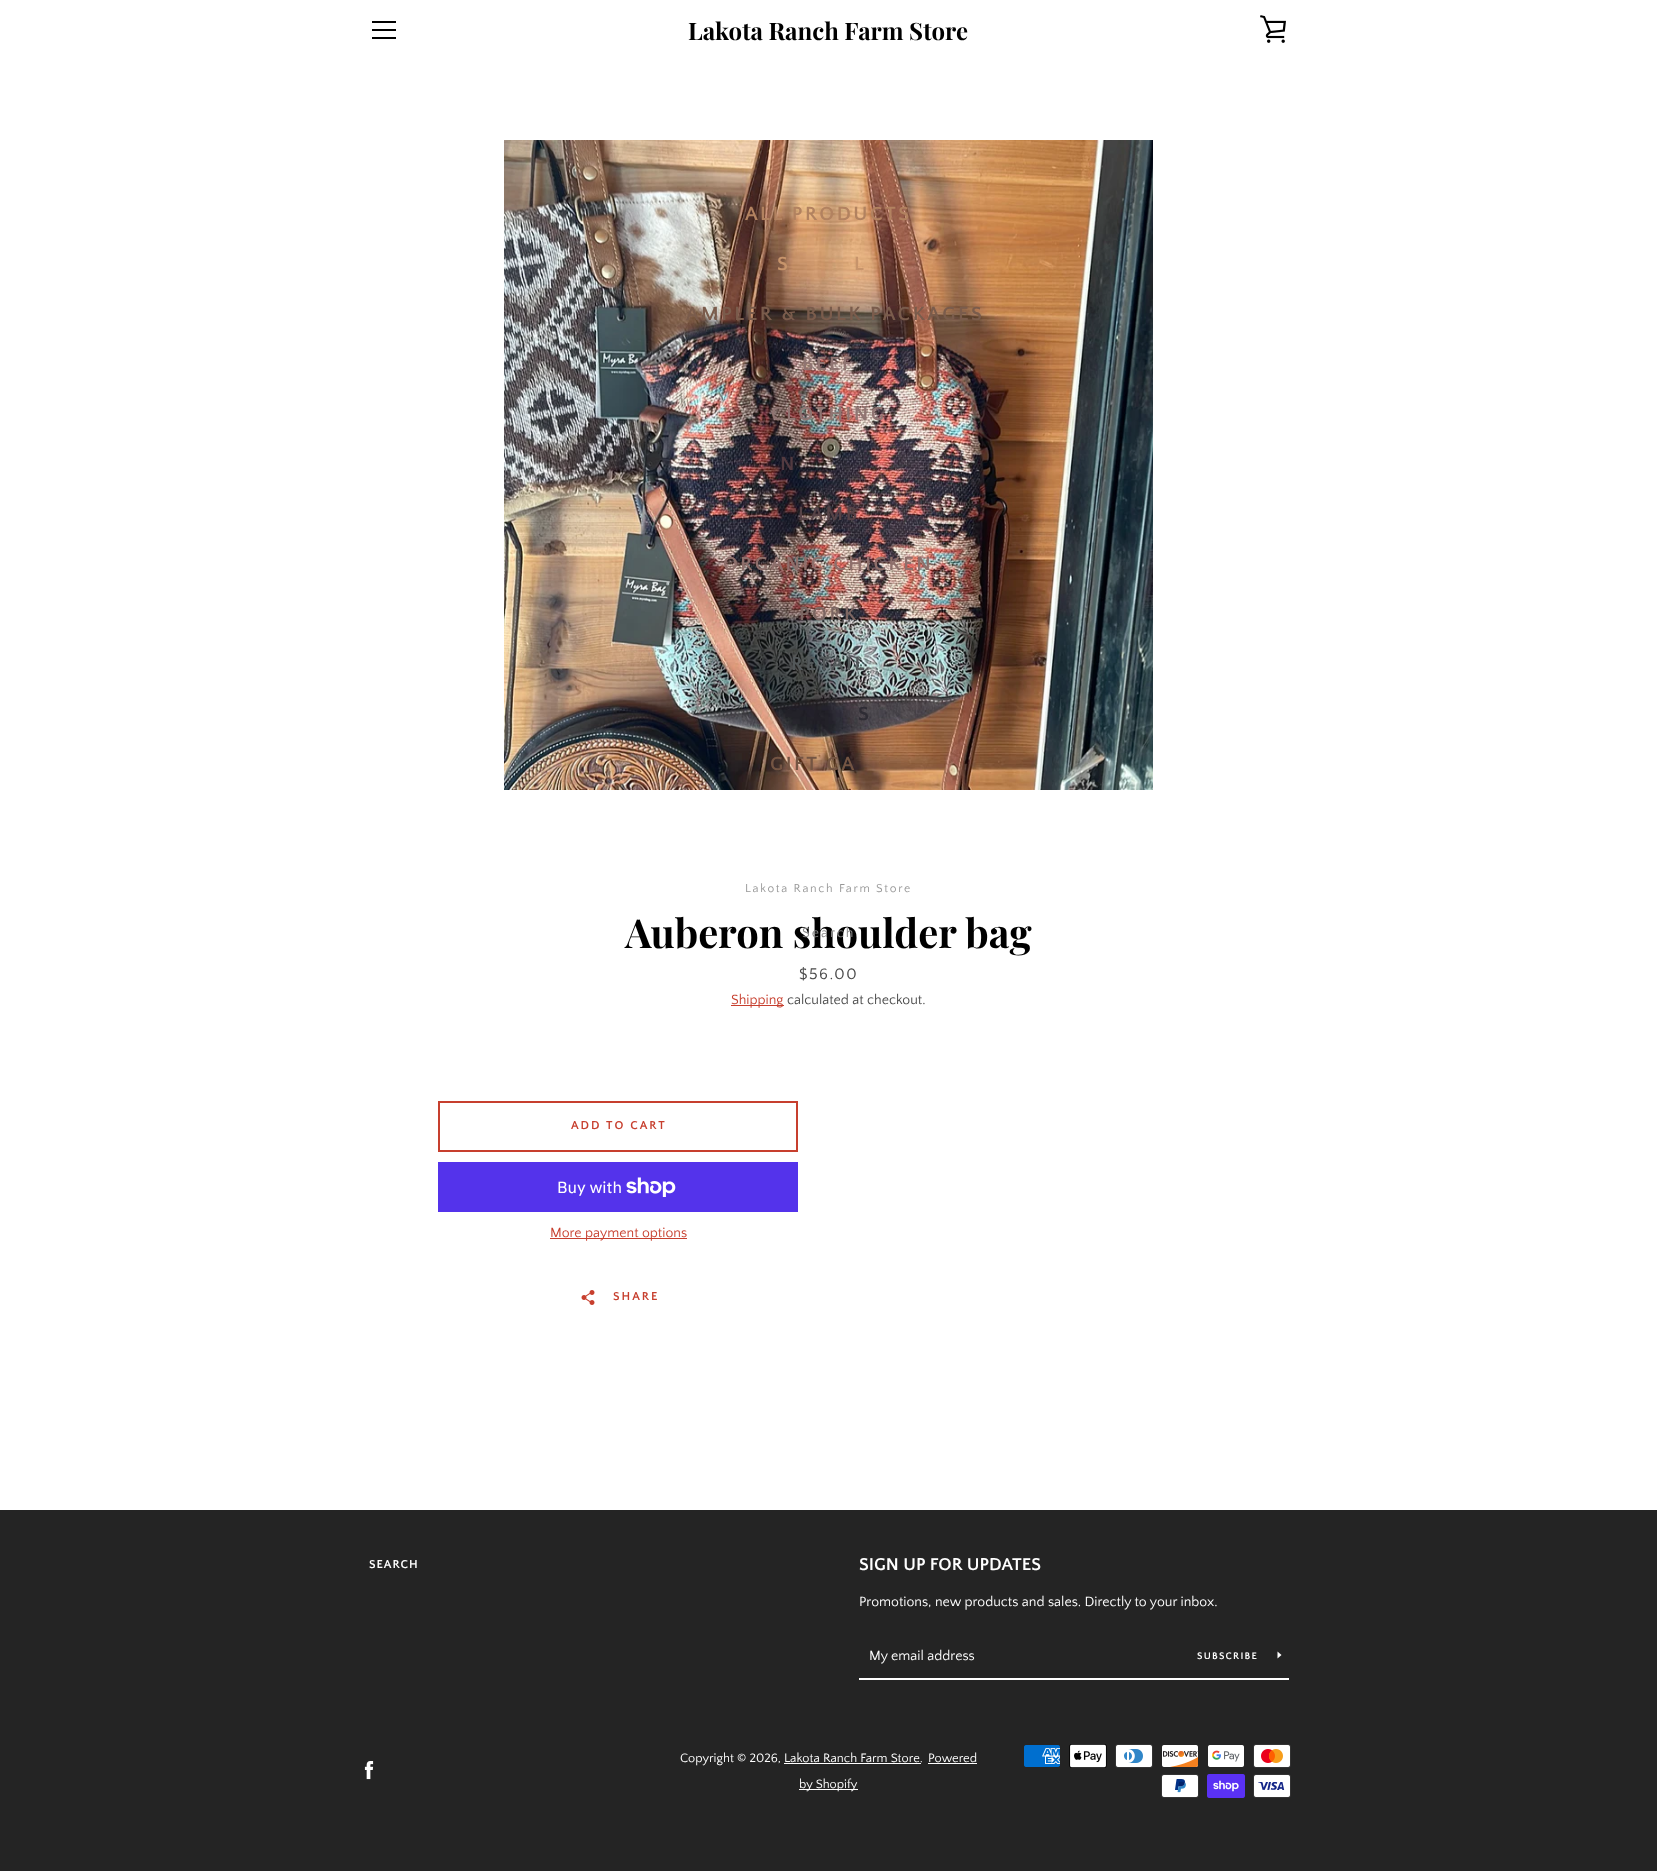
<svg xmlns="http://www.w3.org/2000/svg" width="1657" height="1871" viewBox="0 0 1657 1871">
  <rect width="100%" height="100%" fill="#242424"/>
  <rect x="0" y="0" width="1657" height="1510" fill="#ffffff"/>
  <text x="688" y="40" font-family="Playfair Display" font-size="24" font-weight="bold" fill="#000000">Lakota Ranch Farm Store</text>
  <image x="1260" y="15" width="26" height="28" href="img1.png"/>
  <rect x="372" y="21" width="24" height="2" fill="#000000"/>
  <rect x="372" y="29" width="24" height="2" fill="#000000"/>
  <rect x="372" y="37" width="24" height="2" fill="#000000"/>
  <image x="504" y="140" width="649" height="650" href="img2.png"/>
  <text x="745" y="220" font-family="Quattrocento Sans" font-size="20" font-weight="bold" letter-spacing="2.5" fill="#b28260">ALL PRODUCTS</text>
  <text x="777" y="270" font-family="Quattrocento Sans" font-size="20" font-weight="bold" letter-spacing="2.5" fill="#c7946b">S</text>
  <text x="854" y="270" font-family="Quattrocento Sans" font-size="20" font-weight="bold" letter-spacing="2.5" fill="#c7946b">L</text>
  <text x="686" y="320" font-family="Quattrocento Sans" font-size="20" font-weight="bold" letter-spacing="2.5" fill="#7a5c4c">AMPLER &amp; BULK PACKAGES</text>
  <text x="802" y="370" font-family="Quattrocento Sans" font-size="20" font-weight="bold" letter-spacing="2.5" fill="#907572">BEEF</text>
  <text x="771" y="420" font-family="Quattrocento Sans" font-size="20" font-weight="bold" letter-spacing="2.5" fill="#907572">CLOTHING</text>
  <text x="780" y="470" font-family="Quattrocento Sans" font-size="20" font-weight="bold" letter-spacing="2.5" fill="#523a40">N</text>
  <text x="798" y="520" font-family="Quattrocento Sans" font-size="20" font-weight="bold" letter-spacing="2.5" fill="#574347">LAMB</text>
  <text x="723" y="570" font-family="Quattrocento Sans" font-size="20" font-weight="bold" letter-spacing="2.5" fill="#8e6f6b">ORGANIC CHICKEN</text>
  <text x="799" y="620" font-family="Quattrocento Sans" font-size="20" font-weight="bold" letter-spacing="2.5" fill="#7c6662">PORK</text>
  <text x="791" y="670" font-family="Quattrocento Sans" font-size="20" font-weight="bold" letter-spacing="2.5" fill="#53585a">RETAIL</text>
  <text x="858" y="720" font-family="Quattrocento Sans" font-size="20" font-weight="bold" letter-spacing="2.5" fill="#2e2c34">S</text>
  <text x="770" y="770" font-family="Quattrocento Sans" font-size="20" font-weight="bold" letter-spacing="2.5" fill="#745543">GIFT CA</text>
  <text x="625" y="948" font-family="Playfair Display" font-size="40" font-weight="bold" fill="#000000">Auberon shoulder bag</text>
  <text x="802" y="937" font-family="Quattrocento Sans" font-size="14" letter-spacing="2" fill="#8c8c8c">Search</text>
  <text x="745" y="892" font-family="Quattrocento Sans" font-size="12" letter-spacing="1.7" fill="#979797">Lakota Ranch Farm Store</text>
  <text x="799" y="979" font-family="Quattrocento Sans" font-size="16" letter-spacing="1.5" fill="#4a4a4a">$56.00</text>
  <text x="731" y="1004" font-family="Quattrocento Sans" font-size="14" fill="#c73f2e">Shipping</text>
  <rect x="731" y="1005" width="53" height="1" fill="#c73f2e"/>
  <text x="787" y="1004" font-family="Quattrocento Sans" font-size="14" fill="#4a4a4a">calculated at checkout.</text>
  <rect x="439" y="1102" width="358" height="49" fill="none" stroke="#c73f2e" stroke-width="2"/>
  <text x="571" y="1129" font-family="Quattrocento Sans" font-size="12" font-weight="bold" letter-spacing="2" fill="#c73f2e">ADD TO CART</text>
  <rect x="438" y="1162" width="360" height="50" fill="#5433eb"/>
  <text x="557" y="1193" font-family="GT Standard" font-size="16" fill="#ffffff">Buy with</text>
  <image x="626" y="1177" width="50" height="20" href="img3.png"/>
  <rect x="550" y="1238" width="137" height="1" fill="#c73f2e"/>
  <text x="550" y="1237" font-family="Quattrocento Sans" font-size="14" fill="#c73f2e">More payment options</text>
  <image x="581" y="1290" width="14" height="15" href="img4.png"/>
  <text x="613" y="1300" font-family="Quattrocento Sans" font-size="12" font-weight="bold" letter-spacing="2" fill="#c73f2e">SHARE</text>
  <text x="369" y="1568" font-family="Quattrocento Sans" font-size="12" font-weight="bold" letter-spacing="1" fill="#ffffff">SEARCH</text>
  <text x="859" y="1570" font-family="Quattrocento Sans" font-size="18" font-weight="bold" fill="#ffffff">SIGN UP FOR UPDATES</text>
  <text x="859" y="1606" font-family="Quattrocento Sans" font-size="14" fill="#ffffff">Promotions, new products and sales. Directly to your inbox.</text>
  <rect x="859" y="1678" width="430" height="2" fill="#ffffff"/>
  <text x="869" y="1660" font-family="Quattrocento Sans" font-size="14" fill="#ffffff">My email address</text>
  <text x="1197" y="1659" font-family="Quattrocento Sans" font-size="10" font-weight="bold" letter-spacing="1.25" fill="#ffffff">SUBSCRIBE</text>
  <path d="M1281.5 1655L1277.5 1658.5V1651.5Z" fill="#ffffff"/>
  <image x="364" y="1761" width="10" height="19" href="img5.png"/>
  <text x="680" y="1762" font-family="Quattrocento Sans" font-size="12.75" fill="#ffffff">Copyright © 2026, Lakota Ranch Farm Store.</text>
  <rect x="784" y="1763" width="137" height="1" fill="#ffffff"/>
  <text x="928" y="1762" font-family="Quattrocento Sans" font-size="12.75" fill="#ffffff">Powered</text>
  <rect x="928" y="1763" width="49" height="1" fill="#ffffff"/>
  <rect x="799" y="1789" width="59" height="1" fill="#ffffff"/>
  <text x="799" y="1788" font-family="Quattrocento Sans" font-size="12.75" fill="#ffffff">by Shopify</text>
  <image x="1024" y="1745" width="36" height="22" href="img6.png"/>
  <image x="1069" y="1744" width="38" height="24" href="img7.png"/>
  <image x="1115" y="1744" width="38" height="24" href="img8.png"/>
  <image x="1162" y="1745" width="36" height="22" href="img9.png"/>
  <image x="1208" y="1745" width="36" height="22" href="img10.png"/>
  <image x="1253" y="1744" width="38" height="24" href="img11.png"/>
  <image x="1161" y="1774" width="38" height="24" href="img12.png"/>
  <image x="1207" y="1774" width="38" height="24" href="img13.png"/>
  <image x="1253" y="1774" width="38" height="24" href="img14.png"/>
</svg>
